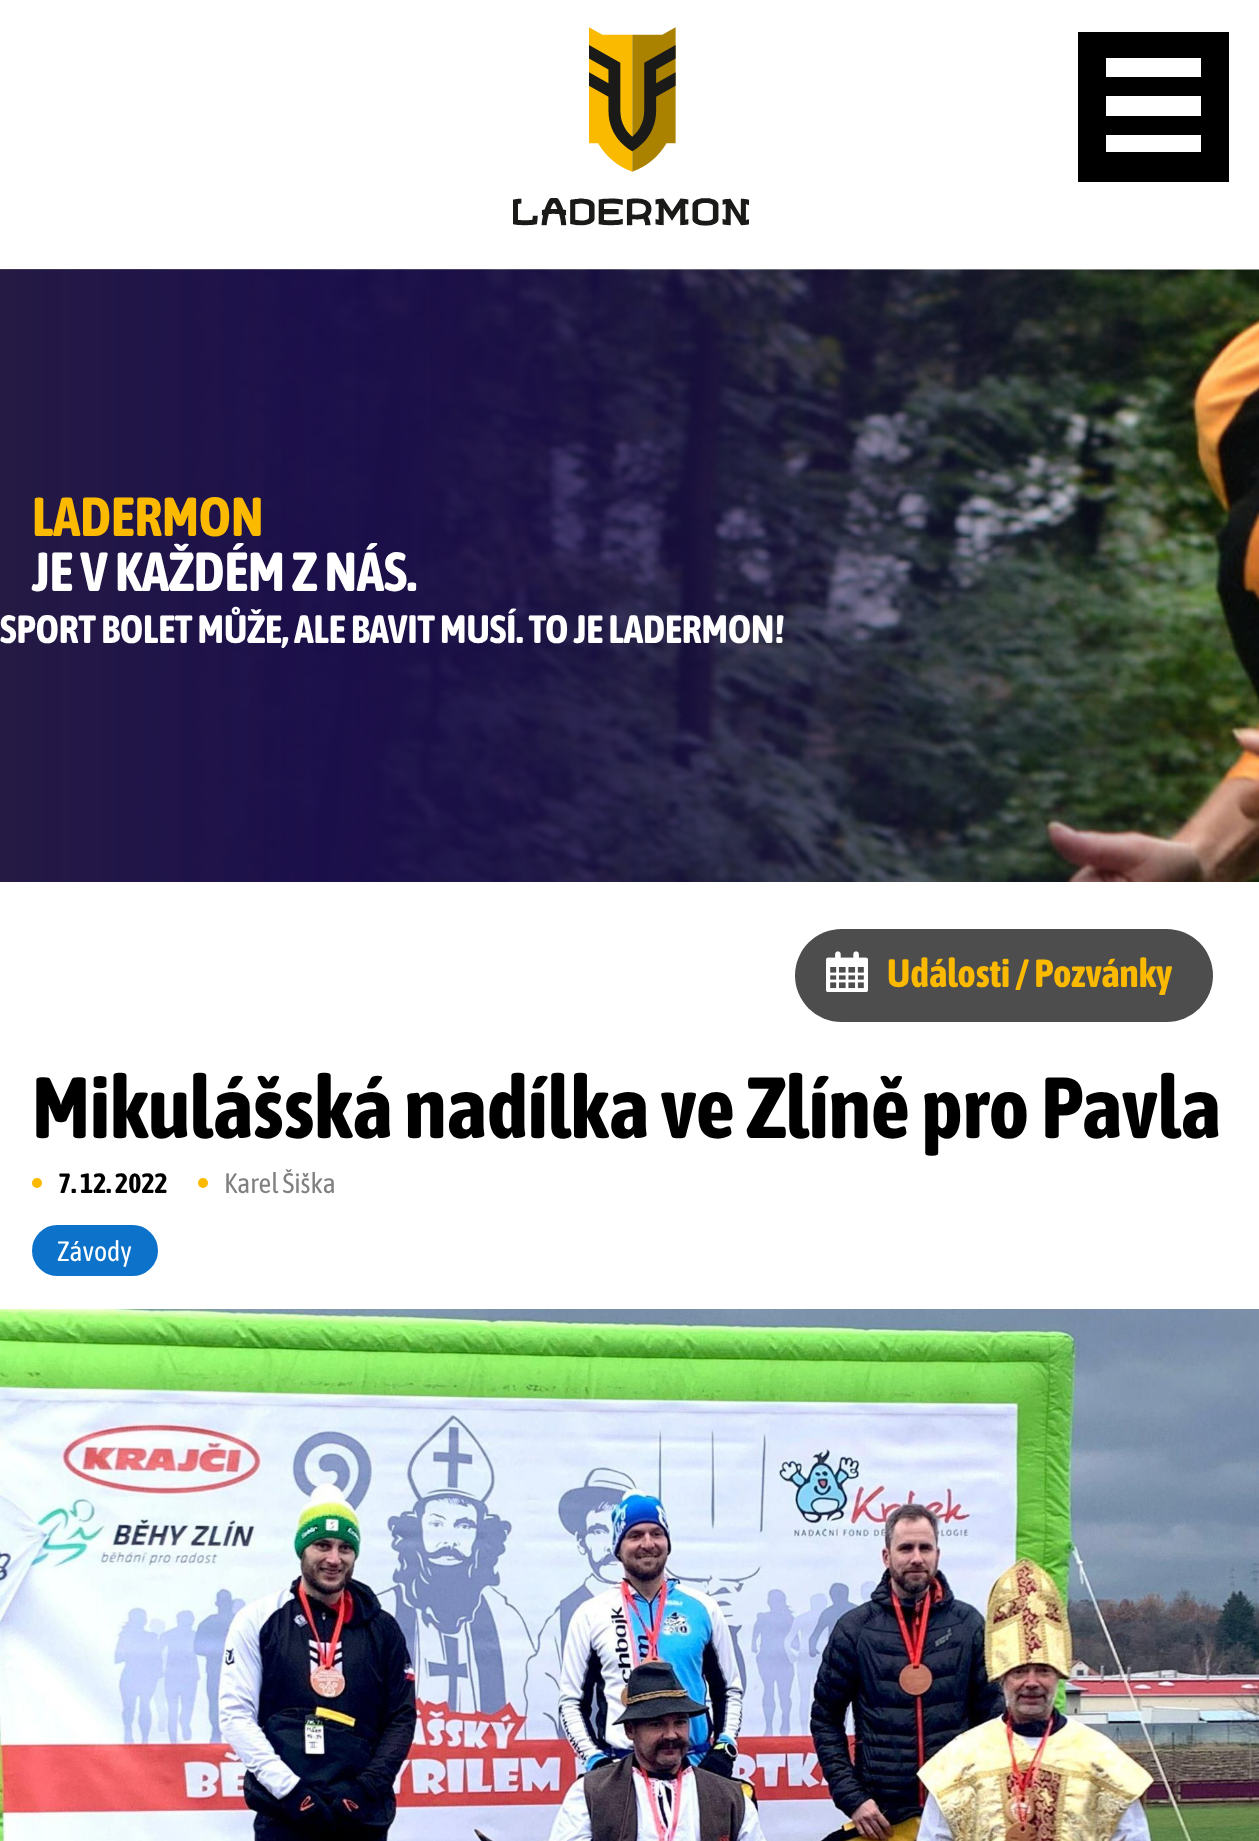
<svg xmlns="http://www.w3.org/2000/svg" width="1259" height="1841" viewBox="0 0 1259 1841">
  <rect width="100%" height="100%" fill="#ffffff"/>
  <rect x="1078" y="32" width="151" height="150" fill="#000000"/>
  <rect x="1106" y="96" width="95" height="20" fill="#ffffff"/>
  <rect x="1106" y="58" width="95" height="19" fill="#ffffff"/>
  <rect x="1106" y="135" width="95" height="17" fill="#ffffff"/>
  <image x="513" y="27" width="236" height="199" href="img1.png"/>
  <image x="0" y="269" width="1259" height="613" href="img2.png"/>
  <image x="0" y="269" width="1191" height="613" href="img3.png"/>
  <text x="32" y="536" font-family="Asap Condensed" font-size="55" font-weight="bold" fill="#fbb900">LADERMON</text>
  <text x="32" y="591" font-family="Asap Condensed" font-size="55" font-weight="bold" fill="#ffffff">JE V KAŽDÉM Z NÁS.</text>
  <text x="0" y="643" font-family="Asap Condensed" font-size="39.4" font-weight="bold" fill="#ffffff">SPORT BOLET MŮŽE, ALE BAVIT MUSÍ. TO JE LADERMON!</text>
  <rect x="795" y="929" width="418" height="93" rx="46.5" fill="#4d4d4d"/>
  <image x="826" y="951" width="42" height="41" href="img4.png"/>
  <text x="887" y="987" font-family="Asap Condensed" font-size="39.4" font-weight="bold" fill="#fbb900">Události / Pozvánky</text>
  <text x="32" y="1138" font-family="Asap Condensed" font-size="86.6" font-weight="bold" fill="#000000">Mikulášská nadílka ve Zlíně pro Pavla</text>
  <circle cx="37" cy="1183" r="5" fill="#fbb900"/>
  <text x="58" y="1193" font-family="Asap Condensed" font-size="28" font-weight="bold" fill="#000000">7. 12. 2022</text>
  <circle cx="203" cy="1183" r="5" fill="#fbb900"/>
  <text x="224" y="1193" font-family="Asap Condensed" font-size="28" fill="#808080">Karel Šiška</text>
  <rect x="33" y="1226" width="124" height="49" rx="24.5" fill="#0c72ca" stroke="#0c72ca" stroke-width="2"/>
  <text x="57" y="1261" font-family="Asap Condensed" font-size="28" fill="#ffffff">Závody</text>
  <image x="0" y="1309" width="1259" height="532" href="img5.png"/>
</svg>
